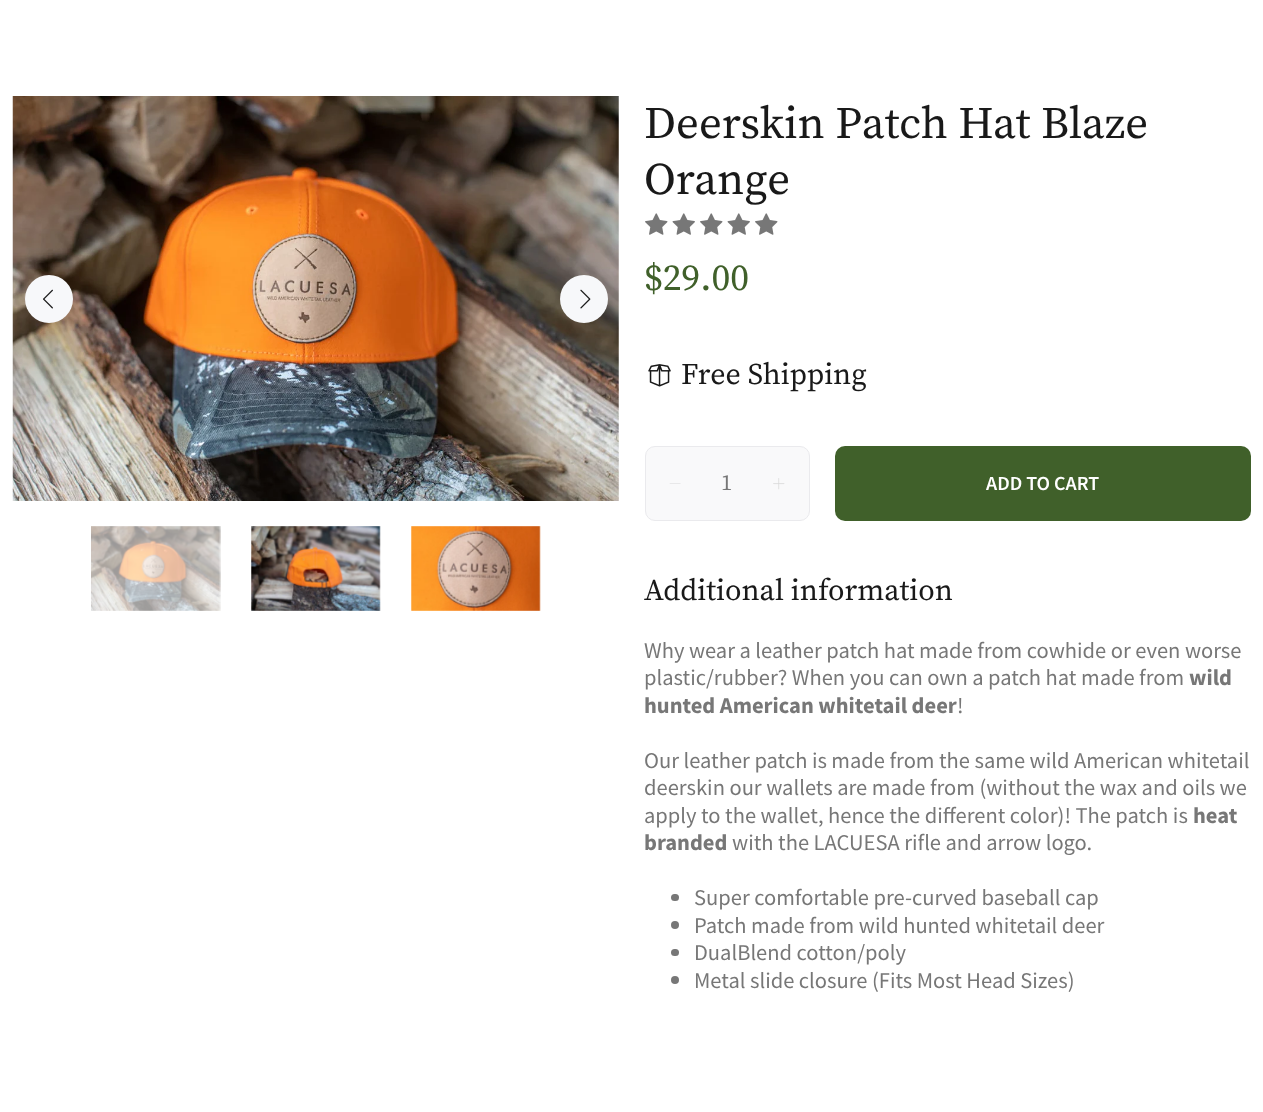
<svg xmlns="http://www.w3.org/2000/svg" width="1263" height="1112" viewBox="0 0 1263 1112">
  <rect width="100%" height="100%" fill="#ffffff"/>
  <image x="12" y="96" width="607" height="405" href="img1.png"/>
  <circle cx="49" cy="299" r="24" fill="#f7f8fa"/>
  <image x="43" y="289" width="10" height="20" href="img2.png"/>
  <circle cx="584" cy="299" r="24" fill="#f7f8fa"/>
  <image x="580" y="289" width="11" height="20" href="img3.png"/>
  <image x="91" y="526" width="130" height="85" href="img4.png"/>
  <image x="251" y="526" width="130" height="85" href="img5.png"/>
  <image x="411" y="526" width="130" height="85" href="img6.png"/>
  <text x="644" y="138" font-family="Source Serif Pro" font-size="45" fill="#191919">Deerskin Patch Hat Blaze</text>
  <text x="644" y="194" font-family="Source Serif Pro" font-size="45" fill="#191919">Orange</text>
  <image x="645" y="213" width="23" height="22" href="img7.png"/>
  <image x="672" y="213" width="23" height="22" href="img8.png"/>
  <image x="700" y="213" width="23" height="22" href="img7.png"/>
  <image x="727" y="213" width="23" height="22" href="img8.png"/>
  <image x="755" y="213" width="23" height="22" href="img7.png"/>
  <text x="644" y="290" font-family="Source Serif Pro" font-size="37.5" fill="#40602a">$29.00</text>
  <image x="648" y="364" width="23" height="23" href="img9.png"/>
  <text x="681" y="384" font-family="Source Serif Pro" font-size="30" fill="#191919">Free Shipping</text>
  <rect x="645.5" y="446.5" width="164" height="74" rx="9.5" fill="#f9f9fa" stroke="#eaeaed"/>
  <path d="M680.5 483.5V484H669.5L670 483.5Z" fill="#d8d8d8"/>
  <text x="721" y="490" font-family="Source Serif Pro" font-size="22.5" fill="#777777">1</text>
  <image x="773" y="478" width="12" height="12" href="img10.png"/>
  <rect x="835" y="446" width="416" height="75" rx="10" fill="#40602a"/>
  <text x="986" y="490" font-family="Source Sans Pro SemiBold" font-size="20" font-weight="600" fill="#ffffff">ADD TO CART</text>
  <text x="644" y="600" font-family="Source Serif Pro" font-size="30" fill="#191919">Additional information</text>
  <text x="644" y="658" font-family="Source Sans Pro" font-size="22.5" fill="#777777">Why wear a leather patch hat made from cowhide or even worse</text>
  <text x="644" y="685" font-family="Source Sans Pro" font-size="22.5" fill="#777777">plastic/rubber? When you can own a patch hat made from</text>
  <text x="1189" y="685" font-family="Source Sans Pro" font-size="22.5" font-weight="bold" fill="#777777">wild</text>
  <text x="644" y="713" font-family="Source Sans Pro" font-size="22.5" font-weight="bold" fill="#777777">hunted American whitetail deer</text>
  <text x="957" y="713" font-family="Source Sans Pro" font-size="22.5" fill="#777777">!</text>
  <text x="644" y="768" font-family="Source Sans Pro" font-size="22.5" fill="#777777">Our leather patch is made from the same wild American whitetail</text>
  <text x="644" y="795" font-family="Source Sans Pro" font-size="22.5" fill="#777777">deerskin our wallets are made from (without the wax and oils we</text>
  <text x="644" y="823" font-family="Source Sans Pro" font-size="22.5" fill="#777777">apply to the wallet, hence the different color)! The patch is</text>
  <text x="1193" y="823" font-family="Source Sans Pro" font-size="22.5" font-weight="bold" fill="#777777">heat</text>
  <text x="644" y="850" font-family="Source Sans Pro" font-size="22.5" font-weight="bold" fill="#777777">branded</text>
  <text x="732" y="850" font-family="Source Sans Pro" font-size="22.5" fill="#777777">with the LACUESA rifle and arrow logo.</text>
  <rect x="671" y="894" width="8" height="7" rx="3.5" fill="#777777"/>
  <text x="694" y="905" font-family="Source Sans Pro" font-size="22.5" fill="#777777">Super comfortable pre-curved baseball cap</text>
  <circle cx="675" cy="925" r="4" fill="#777777"/>
  <text x="694" y="933" font-family="Source Sans Pro" font-size="22.5" fill="#777777">Patch made from wild hunted whitetail deer</text>
  <rect x="671" y="949" width="8" height="7" rx="3.5" fill="#777777"/>
  <text x="694" y="960" font-family="Source Sans Pro" font-size="22.5" fill="#777777">DualBlend cotton/poly</text>
  <circle cx="675" cy="980" r="4" fill="#777777"/>
  <text x="694" y="988" font-family="Source Sans Pro" font-size="22.5" fill="#777777">Metal slide closure (Fits Most Head Sizes)</text>
</svg>
